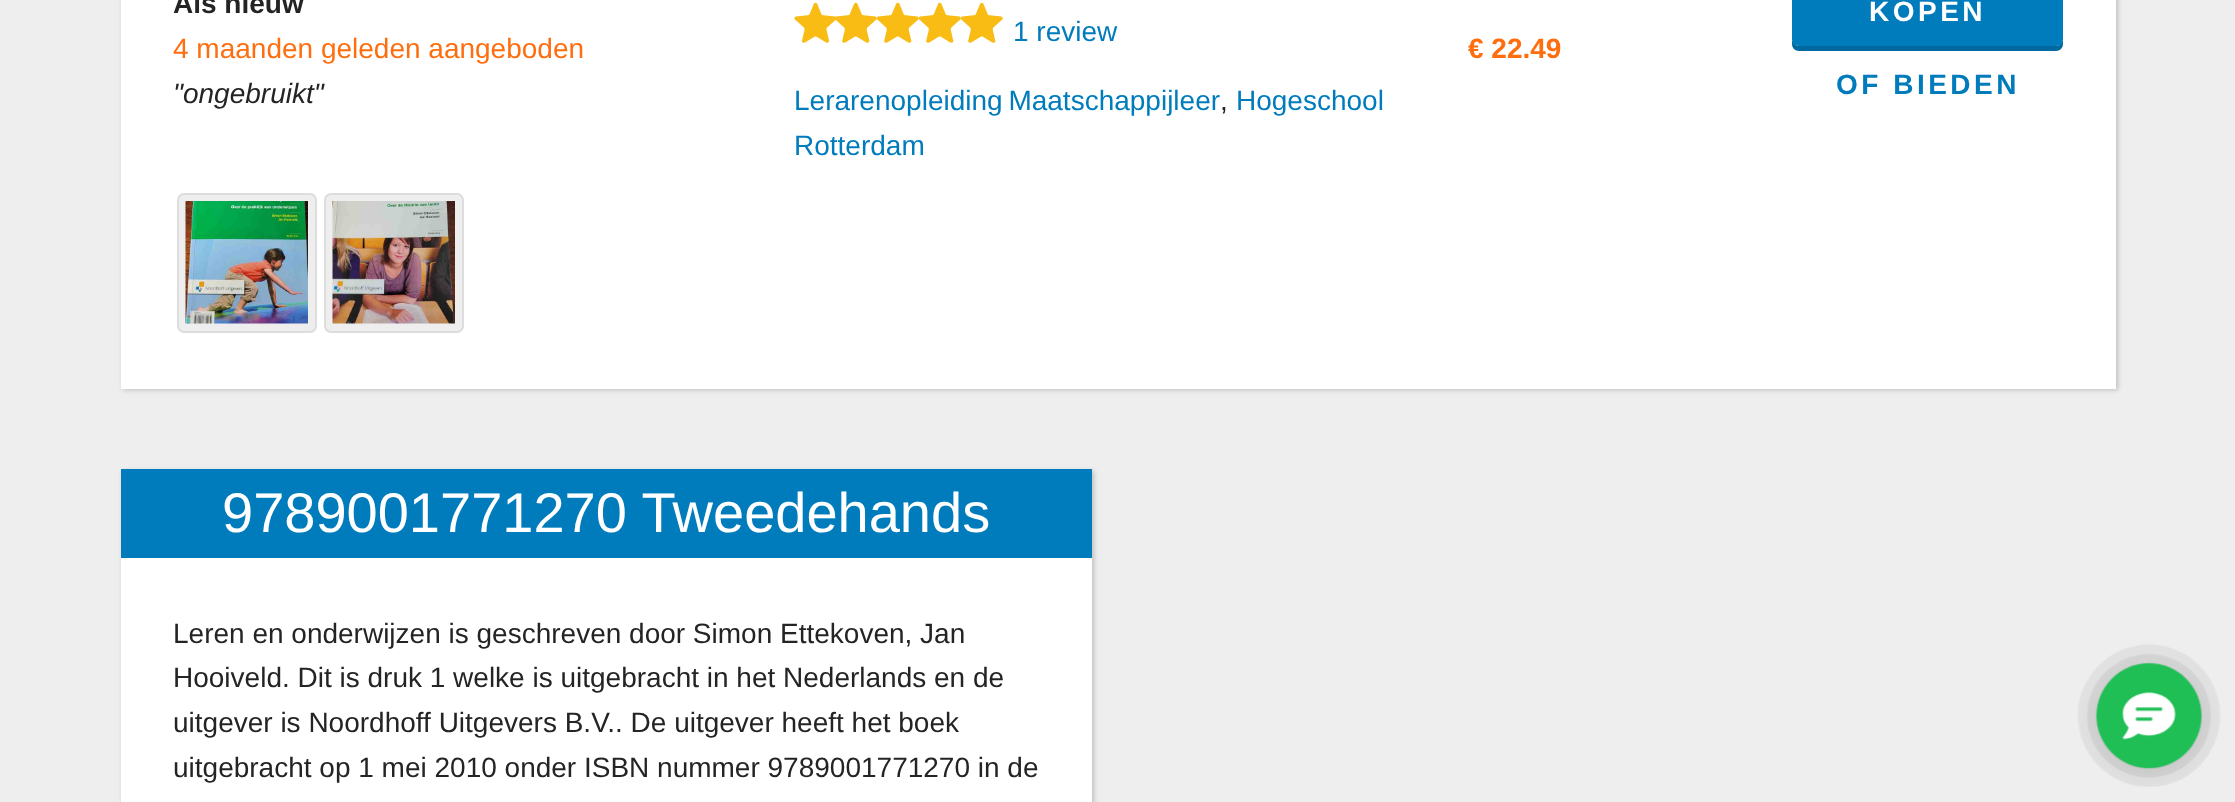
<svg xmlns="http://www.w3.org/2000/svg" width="2235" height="802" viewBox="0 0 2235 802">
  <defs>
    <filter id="blur1" x="-50%" y="-200%" width="200%" height="500%"><feGaussianBlur stdDeviation="2.5"/></filter>
  </defs>
  <rect width="100%" height="100%" fill="#eeeeee"/>
  <rect x="123" y="-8" width="1995" height="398" fill="#000000" fill-opacity="0.2" filter="url(#blur1)"/>
  <rect x="121" y="0" width="1995" height="389" fill="#ffffff"/>
  <text x="173" y="13" font-family="Liberation Sans" font-size="28" font-weight="bold" fill="#242424">Als nieuw</text>
  <text x="173" y="58" font-family="Liberation Sans" font-size="28" fill="#fe6e0e">4 maanden geleden aangeboden</text>
  <text x="173" y="103" font-family="Liberation Sans" font-size="28" font-style="italic" fill="#242424">"ongebruikt"</text>
  <image x="794" y="2" width="42" height="41" href="img1.png"/>
  <image x="835" y="2" width="42" height="41" href="img2.png"/>
  <image x="876" y="2" width="43" height="41" href="img3.png"/>
  <image x="918" y="2" width="43" height="41" href="img3.png"/>
  <image x="960" y="2" width="43" height="41" href="img3.png"/>
  <text x="1013" y="41" font-family="Liberation Sans" font-size="28" fill="#007cbc">1 review</text>
  <text x="794" y="110" word-spacing="-2" font-family="Liberation Sans" font-size="28" fill="#007cbc">Lerarenopleiding Maatschappijleer</text>
  <text x="1220" y="110" font-family="Liberation Sans" font-size="28" fill="#242424">,</text>
  <text x="1236" y="110" font-family="Liberation Sans" font-size="28" fill="#007cbc">Hogeschool</text>
  <text x="794" y="155" font-family="Liberation Sans" font-size="28" fill="#007cbc">Rotterdam</text>
  <text x="1468" y="58" font-family="Liberation Sans" font-size="28" font-weight="bold" fill="#fe6e0e">€ 22.49</text>
  <path d="M1792 38V44C1792 48 1795 51 1799 51H2056C2060 51 2063 48 2063 44V40C2062 43 2059 46 2056 46H1799C1795 46 1792 42 1792 38Z" fill="#006aa0"/>
  <rect x="1792" y="-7" width="271" height="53" rx="7" fill="#007cbc"/>
  <text x="1869" y="21" font-family="Liberation Sans" font-size="28" font-weight="bold" letter-spacing="3.5" fill="#ffffff">KOPEN</text>
  <text x="1836" y="94" font-family="Liberation Sans" font-size="28" font-weight="bold" letter-spacing="3.5" fill="#007cbc">OF BIEDEN</text>
  <rect x="178" y="194" width="138" height="138" rx="6" fill="#eeeeee" stroke="#dddddd" stroke-width="2"/>
  <image x="185" y="201" width="123" height="123" href="img4.png"/>
  <rect x="325" y="194" width="138" height="138" rx="6" fill="#eeeeee" stroke="#dddddd" stroke-width="2"/>
  <image x="332" y="201" width="123" height="123" href="img5.png"/>
  <rect x="123" y="471" width="971" height="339" fill="#000000" fill-opacity="0.2" filter="url(#blur1)"/>
  <rect x="121" y="558" width="971" height="244" fill="#ffffff"/>
  <rect x="121" y="469" width="971" height="89" fill="#007cbc"/>
  <text x="222" y="532" font-family="Liberation Sans" font-size="56" fill="#ffffff">9789001771270 Tweedehands</text>
  <text x="173" y="643" font-family="Liberation Sans" font-size="28" fill="#242424">Leren en onderwijzen is geschreven door Simon Ettekoven, Jan</text>
  <text x="173" y="687" font-family="Liberation Sans" font-size="28" fill="#242424">Hooiveld. Dit is druk 1 welke is uitgebracht in het Nederlands en de</text>
  <text x="173" y="732" font-family="Liberation Sans" font-size="28" fill="#242424">uitgever is Noordhoff Uitgevers B.V.. De uitgever heeft het boek</text>
  <text x="173" y="777" font-family="Liberation Sans" font-size="28" fill="#242424">uitgebracht op 1 mei 2010 onder ISBN nummer 9789001771270 in de</text>
  <image x="2077" y="644" width="144" height="143" href="img6.png"/>
</svg>
